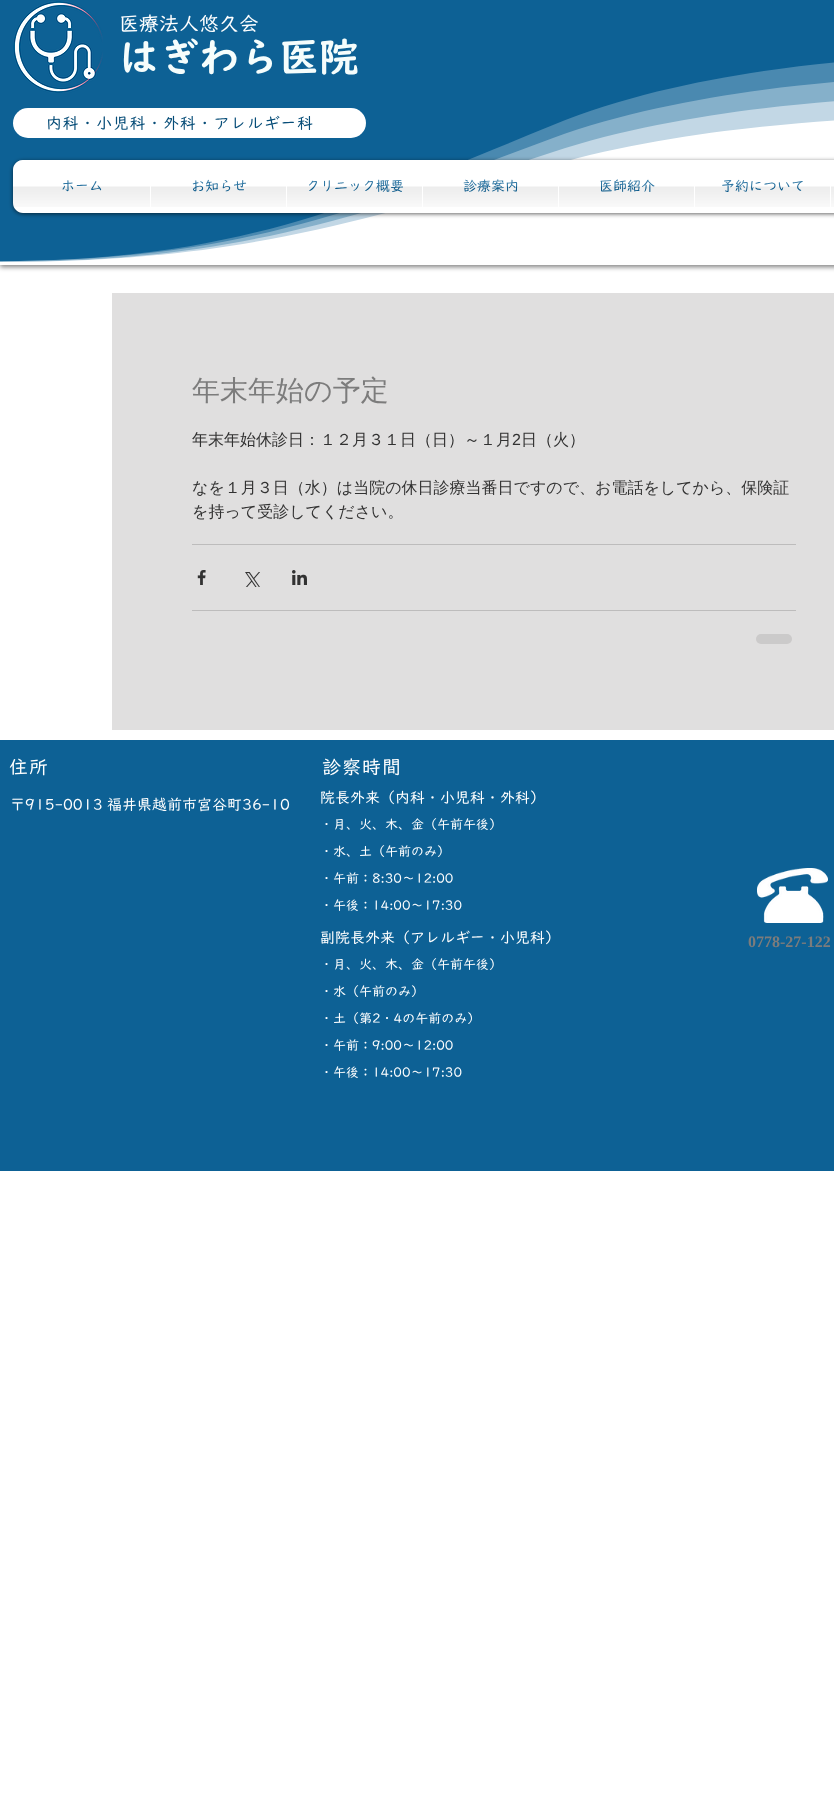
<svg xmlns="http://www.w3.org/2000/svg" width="834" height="1810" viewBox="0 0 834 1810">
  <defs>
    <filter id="blur1" x="-50%" y="-200%" width="200%" height="500%"><feGaussianBlur stdDeviation="2.5"/></filter>
    <filter id="blur2" x="-50%" y="-200%" width="200%" height="500%"><feGaussianBlur stdDeviation="2"/></filter>
  </defs>
  <rect width="100%" height="100%" fill="#ffffff"/>
  <rect x="0" y="0" width="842" height="267" fill="#000000" fill-opacity="0.5" filter="url(#blur1)"/>
  <rect x="0" y="0" width="834" height="261" fill="#0d6195"/>
  <path d="M0 265V261C232 261 353 207 553 125C730 52 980 55 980 55V265Z" fill="#4a89b0"/>
  <path d="M0 265V261C232 261 353 212 553 138C730 73 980 75 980 75V265Z" fill="#ffffff" fill-opacity="0.33"/>
  <image x="13" y="1" width="90" height="92" href="img1.png"/>
  <text x="119" y="31" font-family="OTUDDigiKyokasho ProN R" font-size="20" fill="#ffffff">医療法人悠久会</text>
  <text x="119" y="72" font-family="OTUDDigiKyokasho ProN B" font-size="40" font-weight="bold" fill="#f5fdfc">はぎわら医院</text>
  <path d="M0 265V262C232 262 353 218 553 152C730 93 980 95 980 95V265Z" fill="#c2d7e5"/>
  <path d="M0 265V262C232 262 353 224 553 165C730 113 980 115 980 115V265Z" fill="#ffffff"/>
  <rect x="13" y="108" width="353" height="30" rx="15" fill="#ffffff"/>
  <text x="46" y="129" font-family="OTUDDigiKyokasho ProN R" font-size="16" letter-spacing="0.75" fill="#074d78">内科・小児科・外科・アレルギー科</text>
  <rect x="13" y="161" width="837" height="53" rx="10" fill="#000000" fill-opacity="0.6" filter="url(#blur2)"/>
  <image x="13" y="160" width="10" height="44" href="img2.png"/>
  <path d="M23 160H150V213H23C17.5 213 13 208.5 13 203V170C13 164.5 17.5 160 23 160Z" fill="#ffffff"/>
  <text x="61" y="191" font-family="OTUDDigiKyokasho ProN R" font-size="14" fill="#0d6195">ホーム</text>
  <image x="13" y="160" width="137" height="47" href="img3.png"/>
  <rect x="150" y="160" width="684" height="53" fill="#ffffff"/>
  <text x="191" y="191" font-family="OTUDDigiKyokasho ProN R" font-size="14" fill="#0d6195">お知らせ</text>
  <image x="151" y="180" width="135" height="27" href="img4.png"/>
  <text x="306" y="191" font-family="OTUDDigiKyokasho ProN R" font-size="14" fill="#0d6195">クリニック概要</text>
  <image x="287" y="179" width="135" height="28" href="img5.png"/>
  <text x="463" y="191" font-family="OTUDDigiKyokasho ProN R" font-size="14" fill="#0d6195">診療案内</text>
  <image x="423" y="179" width="135" height="28" href="img6.png"/>
  <text x="599" y="191" font-family="OTUDDigiKyokasho ProN R" font-size="14" fill="#0d6195">医師紹介</text>
  <image x="559" y="179" width="135" height="28" href="img7.png"/>
  <text x="721" y="191" font-family="OTUDDigiKyokasho ProN R" font-size="14" fill="#0d6195">予約について</text>
  <image x="695" y="179" width="135" height="28" href="img8.png"/>
  <image x="831" y="186" width="3" height="21" href="img9.png"/>
  <rect x="112" y="293" width="722" height="437" fill="#e0dfdf"/>
  <text x="192" y="400" font-family="WenQuanYi Zen Hei" font-size="28" font-weight="500" fill="#7c7c7c">年末年始の予定</text>
  <text x="192" y="445" font-family="WenQuanYi Zen Hei" font-size="16" font-weight="500" fill="#323232">年末年始休診日：１２月３１日（日）～１月</text>
  <text x="512" y="445" font-family="Liberation Sans" font-size="16" fill="#323232">2</text>
  <text x="521" y="445" font-family="WenQuanYi Zen Hei" font-size="16" font-weight="500" fill="#323232">日（火）</text>
  <text x="192" y="493" font-family="WenQuanYi Zen Hei" font-size="16" font-weight="500" fill="#323232">なを１月３日（水）は当院の休日診療当番日ですので、お電話をしてから、保険証</text>
  <text x="192" y="517" font-family="WenQuanYi Zen Hei" font-size="16" font-weight="500" fill="#323232">を持って受診してください。</text>
  <rect x="192" y="544" width="604" height="1" fill="#bdbcbc"/>
  <image x="197" y="570" width="9" height="15" href="img10.png"/>
  <image x="245" y="572" width="15" height="15" href="img11.png"/>
  <image x="292" y="570" width="15" height="15" href="img12.png"/>
  <rect x="192" y="610" width="604" height="1" fill="#bdbcbc"/>
  <rect x="756" y="634" width="36" height="10" rx="5" fill="#cbcaca"/>
  <rect x="0" y="740" width="834" height="431" fill="#0d6195"/>
  <text x="9" y="774" font-family="OTUDDigiKyokasho ProN R" font-size="19" letter-spacing="1" fill="#ffffff">住所</text>
  <text x="10" y="810" font-family="OTUDDigiKyokasho ProN R" font-size="15" fill="#ffffff">〒915-0013 福井県越前市宮谷町36-10</text>
  <text x="322" y="774" font-family="OTUDDigiKyokasho ProN R" font-size="19" letter-spacing="1" fill="#ffffff">診察時間</text>
  <text x="320" y="803" font-family="OTUDDigiKyokasho ProN R" font-size="15" fill="#ffffff">院長外来（内科・小児科・外科）</text>
  <text x="320" y="829" font-family="OTUDDigiKyokasho ProN R" font-size="13" fill="#ffffff">・月、火、木、金（午前午後）</text>
  <text x="320" y="856" font-family="OTUDDigiKyokasho ProN R" font-size="13" fill="#ffffff">・水、土（午前のみ）</text>
  <text x="320" y="883" font-family="OTUDDigiKyokasho ProN R" font-size="13" fill="#ffffff">・午前：8:30～12:00</text>
  <text x="320" y="910" font-family="OTUDDigiKyokasho ProN R" font-size="13" fill="#ffffff">・午後：14:00～17:30</text>
  <text x="320" y="943" font-family="OTUDDigiKyokasho ProN R" font-size="15" fill="#ffffff">副院長外来（アレルギー・小児科）</text>
  <text x="320" y="969" font-family="OTUDDigiKyokasho ProN R" font-size="13" fill="#ffffff">・月、火、木、金（午前午後）</text>
  <text x="320" y="996" font-family="OTUDDigiKyokasho ProN R" font-size="13" fill="#ffffff">・水（午前のみ）</text>
  <text x="320" y="1023" font-family="OTUDDigiKyokasho ProN R" font-size="13" fill="#ffffff">・土（第2・4の午前のみ）</text>
  <text x="320" y="1050" font-family="OTUDDigiKyokasho ProN R" font-size="13" fill="#ffffff">・午前：9:00～12:00</text>
  <text x="320" y="1077" font-family="OTUDDigiKyokasho ProN R" font-size="13" fill="#ffffff">・午後：14:00～17:30</text>
  <image x="757" y="868" width="71" height="55" href="img13.png"/>
  <text x="748" y="947" font-family="Liberation Serif" font-size="16" font-weight="bold" fill="#7c7c7c">0778-27-122</text>
</svg>
